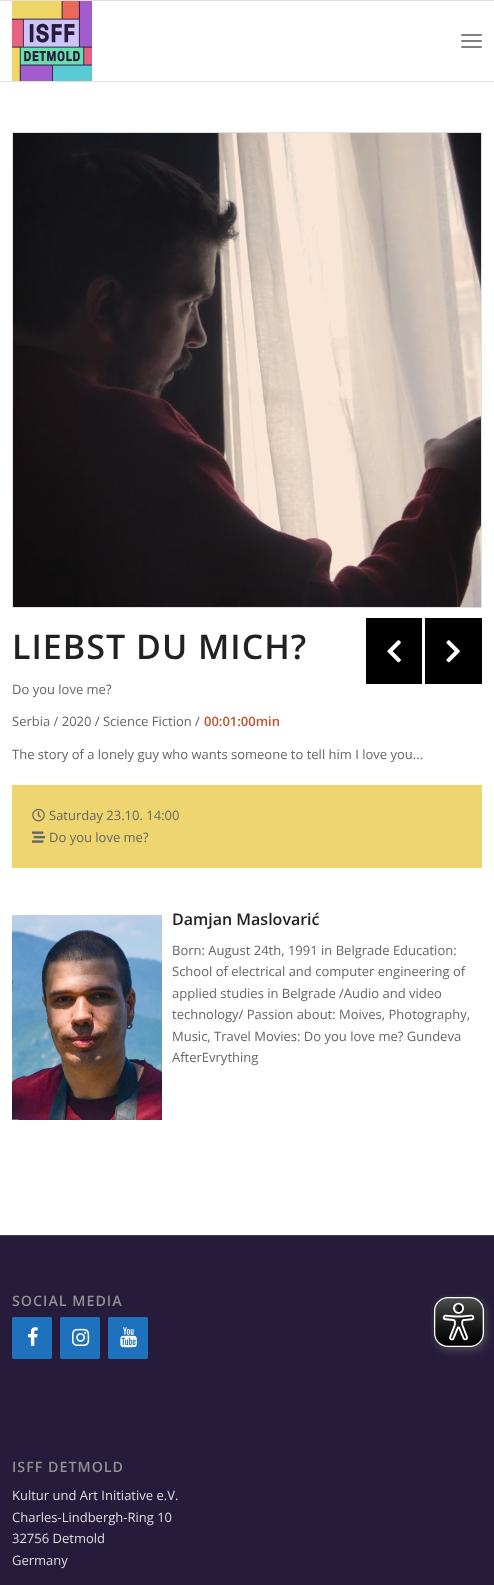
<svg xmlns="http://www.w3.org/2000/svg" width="494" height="1585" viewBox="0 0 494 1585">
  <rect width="100%" height="100%" fill="#ffffff"/>
  <rect x="0" y="0" width="494" height="1" fill="#e1e1e1"/>
  <rect x="0" y="81" width="494" height="1" fill="#e1e1e1"/>
  <image x="12" y="1" width="80" height="80" href="img1.png"/>
  <rect x="461" y="40" width="21" height="2" rx="1" fill="#808080"/>
  <rect x="461" y="34" width="21" height="2" rx="1" fill="#808080"/>
  <rect x="461" y="46" width="21" height="2" rx="1" fill="#808080"/>
  <image x="13" y="133" width="468" height="474" href="img2.png"/>
  <rect x="12.5" y="132.5" width="469" height="475" fill="none" stroke="#e1e1e1"/>
  <rect x="366" y="618" width="56" height="66" fill="#000000"/>
  <image x="387" y="640" width="14" height="23" href="img3.png"/>
  <rect x="425" y="618" width="57" height="66" fill="#000000"/>
  <image x="446" y="640" width="14" height="23" href="img4.png"/>
  <text x="12" y="659" font-family="Open Sans" font-size="34" font-weight="600" letter-spacing="1" fill="#222222">LIEBST DU MICH?</text>
  <text x="12" y="694" font-family="Open Sans" font-size="13" fill="#666666">Do you love me?</text>
  <text x="12" y="726" font-family="Open Sans" font-size="13" fill="#666666">Serbia / 2020 / Science Fiction /</text>
  <text x="204" y="726" font-family="Open Sans" font-size="13" font-weight="600" fill="#c3512f">00:01:00min</text>
  <text x="12" y="759" font-family="Open Sans" font-size="13" fill="#666666">The story of a lonely guy who wants someone to tell him I love you...</text>
  <rect x="12" y="785" width="470" height="83" fill="#efd56f"/>
  <image x="32" y="808" width="13" height="14" href="img5.png"/>
  <text x="49" y="820" font-family="Open Sans" font-size="13" fill="#666666">Saturday 23.10. 14:00</text>
  <image x="32" y="831" width="13" height="12" href="img6.png"/>
  <text x="49" y="842" font-family="Open Sans" font-size="13" fill="#666666">Do you love me?</text>
  <image x="12" y="915" width="150" height="205" href="img7.png"/>
  <text x="172" y="925" font-family="Open Sans" font-size="16" font-weight="600" fill="#222222">Damjan Maslovarić</text>
  <text x="172" y="955" font-family="Open Sans" font-size="13" fill="#666666">Born: August 24th, 1991 in Belgrade Education:</text>
  <text x="172" y="976" font-family="Open Sans" font-size="13" fill="#666666">School of electrical and computer engineering of</text>
  <text x="172" y="998" font-family="Open Sans" font-size="13" fill="#666666">applied studies in Belgrade /Audio and video</text>
  <text x="172" y="1019" font-family="Open Sans" font-size="13" fill="#666666">technology/ Passion about: Moives, Photography,</text>
  <text x="172" y="1041" font-family="Open Sans" font-size="13" fill="#666666">Music, Travel Movies: Do you love me? Gundeva</text>
  <text x="172" y="1062" font-family="Open Sans" font-size="13" fill="#666666">AfterEvrything</text>
  <rect x="0" y="1236" width="494" height="349" fill="#271b3c"/>
  <rect x="0" y="1235" width="494" height="1" fill="#444444"/>
  <text x="12" y="1306" font-family="Open Sans" font-size="14.25" font-weight="600" letter-spacing="1" fill="#919191">SOCIAL MEDIA</text>
  <rect x="12" y="1317" width="40" height="42" rx="2" fill="#1e72bd"/>
  <image x="28" y="1327" width="10" height="19" href="img8.png"/>
  <rect x="60" y="1317" width="40" height="42" rx="2" fill="#1e72bd"/>
  <image x="72" y="1328" width="18" height="18" href="img9.png"/>
  <rect x="108" y="1317" width="40" height="42" rx="2" fill="#1e72bd"/>
  <image x="120" y="1327" width="17" height="21" href="img10.png"/>
  <text x="12" y="1472" font-family="Open Sans" font-size="14.25" font-weight="600" letter-spacing="1" fill="#919191">ISFF DETMOLD</text>
  <text x="12" y="1500" font-family="Open Sans" font-size="13" fill="#dddddd">Kultur und Art Initiative e.V.</text>
  <text x="12" y="1522" font-family="Open Sans" font-size="13" fill="#dddddd">Charles-Lindbergh-Ring 10</text>
  <text x="12" y="1543" font-family="Open Sans" font-size="13" fill="#dddddd">32756 Detmold</text>
  <text x="12" y="1565" font-family="Open Sans" font-size="13" fill="#dddddd">Germany</text>
  <image x="430" y="1294" width="62" height="62" href="img11.png"/>
</svg>
